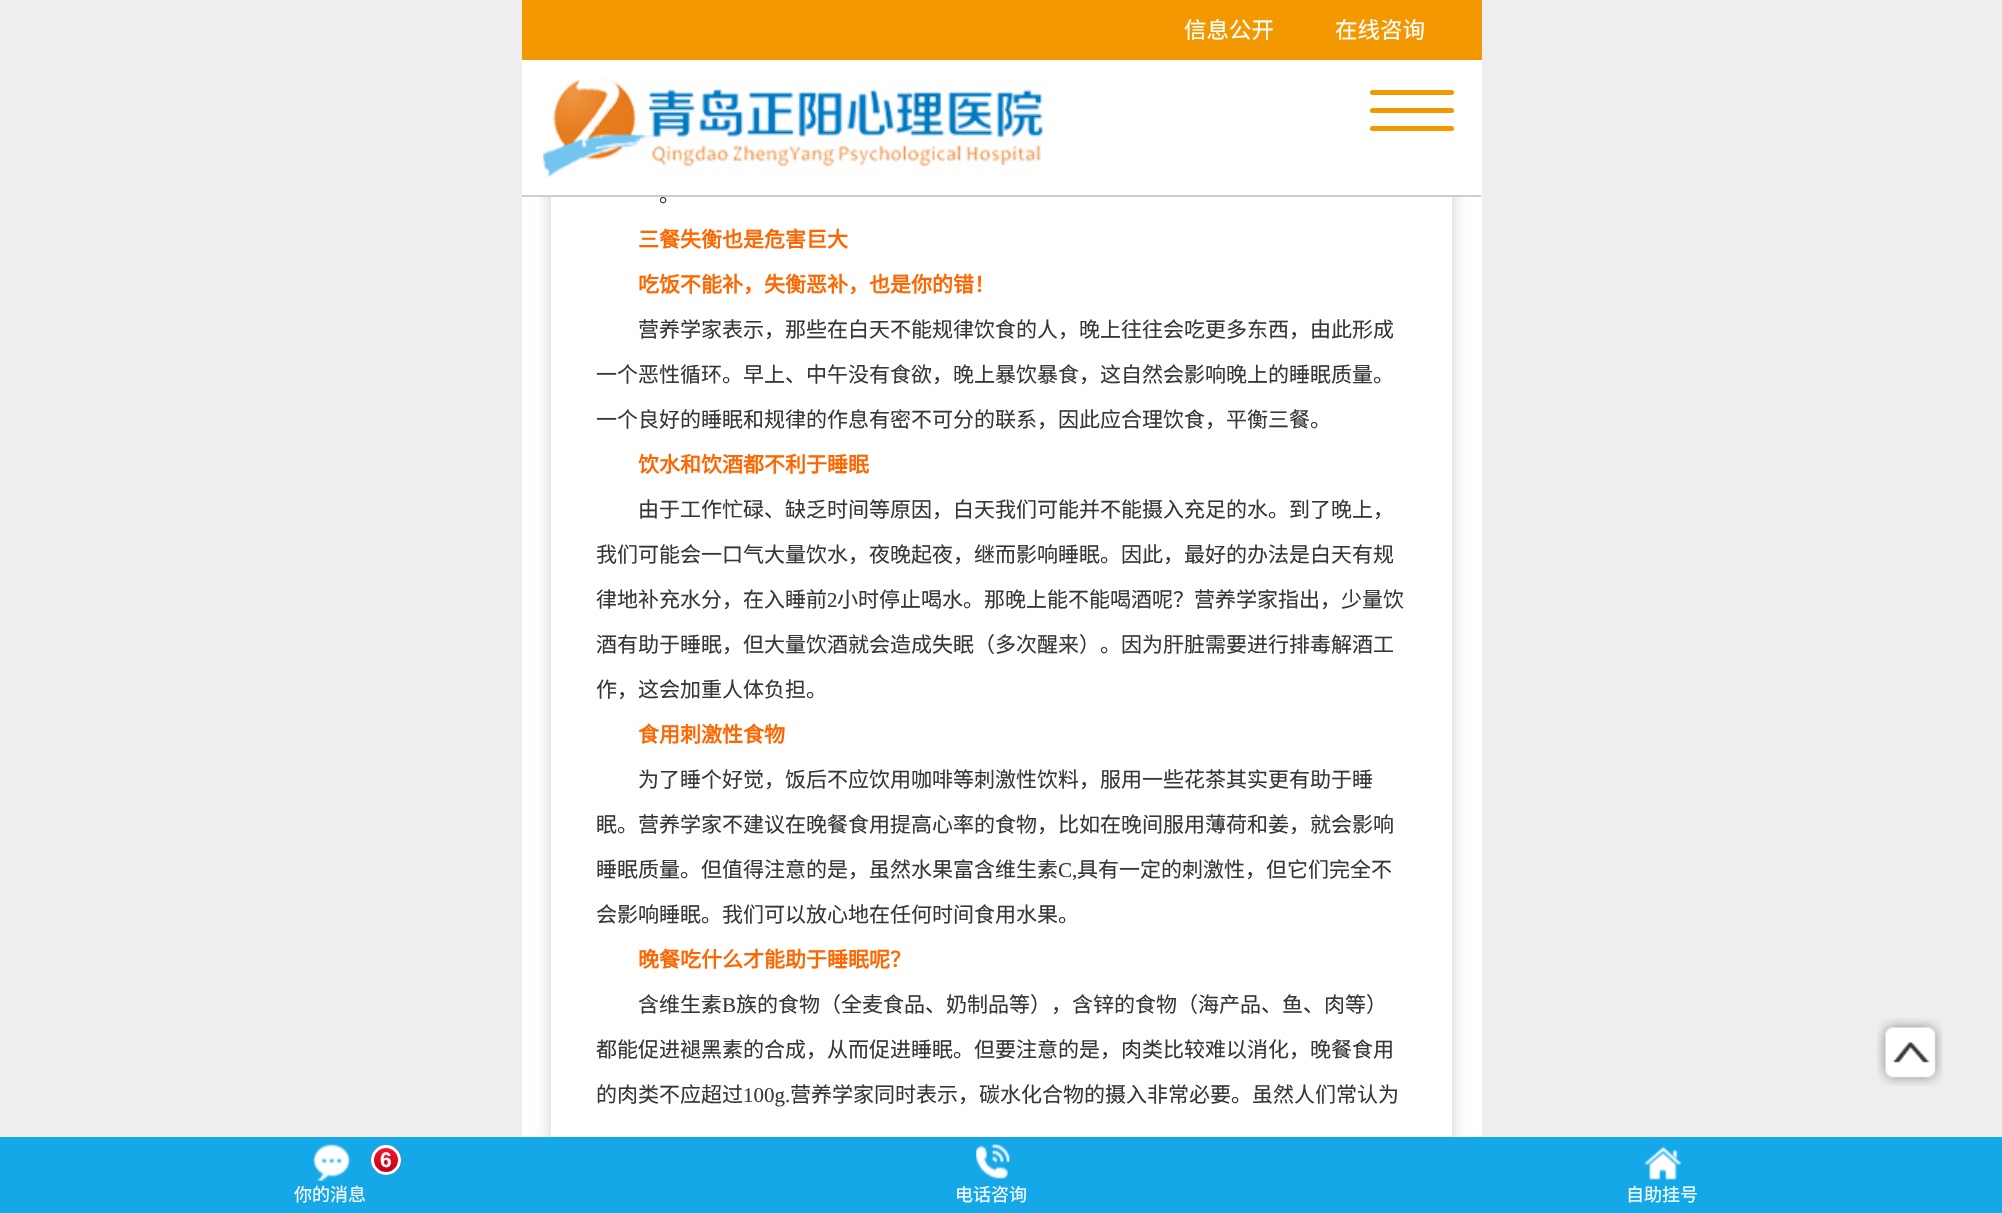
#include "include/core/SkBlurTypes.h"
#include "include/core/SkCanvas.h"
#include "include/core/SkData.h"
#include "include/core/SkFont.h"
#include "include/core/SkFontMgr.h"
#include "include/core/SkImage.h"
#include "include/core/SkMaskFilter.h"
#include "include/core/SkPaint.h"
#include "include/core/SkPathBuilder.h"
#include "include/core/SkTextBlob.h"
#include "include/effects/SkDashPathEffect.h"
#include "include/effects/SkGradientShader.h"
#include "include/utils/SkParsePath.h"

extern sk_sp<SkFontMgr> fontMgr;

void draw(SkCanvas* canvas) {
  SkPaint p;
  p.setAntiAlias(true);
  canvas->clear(SkColorSetRGB(238, 238, 238));
  p.setColor(SK_ColorWHITE);
  canvas->drawRect(SkRect::MakeLTRB(522, 197, 1482, 1137), p);
  canvas->save();
  canvas->clipPath(SkPathBuilder(SkPathFillType::kEvenOdd).moveTo(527, 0).lineTo(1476, 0).lineTo(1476, 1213).lineTo(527, 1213).close().moveTo(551, -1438).lineTo(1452, -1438).lineTo(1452, 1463).lineTo(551, 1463).close().detach(), true);
  p.setColor(SkColorSetARGB(51, 0, 0, 0));
  p.setMaskFilter(SkMaskFilter::MakeBlur(kNormal_SkBlurStyle, 7.5f));
  canvas->drawRect(SkRect::MakeLTRB(551, -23, 1452, 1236), p);
  p.setMaskFilter(nullptr);
  canvas->restore();
  p.setColor(SkColorSetRGB(243, 152, 0));
  canvas->drawRect(SkRect::MakeLTRB(522, 0, 1482, 60), p);
  canvas->drawImageRect(SkImages::DeferredFromEncodedData(SkData::MakeFromFileName("images/2.png")), SkRect::MakeLTRB(1877, 1018, 1943, 1086), SkSamplingOptions());
  p.setColor(SkColorSetRGB(21, 168, 233));
  canvas->drawRect(SkRect::MakeLTRB(0, 1137, 2002, 1213), p);
  canvas->save();
  canvas->clipPath(SkPathBuilder().moveTo(386, 1145).cubicTo(394.5f, 1145, 401, 1151.5f, 401, 1160).cubicTo(401, 1168.5f, 394.5f, 1175, 386, 1175).cubicTo(377.5f, 1175, 371, 1168.5f, 371, 1160).cubicTo(371, 1151.5f, 377.5f, 1145, 386, 1145).close().detach(), true);
  {
    const SkColor colors[] = {SkColorSetRGB(253, 20, 46), SkColorSetRGB(191, 1, 22)};
    const float stops[] = {0, 1};
    const SkPoint ends[] = {{386, 1148}, {386, 1172}};
    p.setShader(SkGradientShader::MakeLinear(ends, colors, stops, 2, SkTileMode::kClamp));
    p.setAlpha(255);
  }
  canvas->drawRect(SkRect::MakeLTRB(371, 1148, 401, 1172), p);
  canvas->restore();
  p.setStyle(SkPaint::kStroke_Style);
  p.setStrokeWidth(3);
  p.setShader(nullptr);
  p.setColor(SK_ColorWHITE);
  canvas->drawCircle(386, 1160, 13.5f, p);
  canvas->drawImageRect(SkImages::DeferredFromEncodedData(SkData::MakeFromFileName("images/3.png")), SkRect::MakeLTRB(312, 1144, 351, 1181), SkSamplingOptions());
  canvas->drawImageRect(SkImages::DeferredFromEncodedData(SkData::MakeFromFileName("images/4.png")), SkRect::MakeLTRB(976, 1144, 1010, 1179), SkSamplingOptions());
  canvas->drawImageRect(SkImages::DeferredFromEncodedData(SkData::MakeFromFileName("images/5.png")), SkRect::MakeLTRB(1644, 1146, 1682, 1180), SkSamplingOptions());
  SkFont font1(fontMgr->matchFamilyStyle("Noto Sans CJK SC", SkFontStyle::Normal()), 22.5f);
  font1.setSubpixel(true);
  p.setStyle(SkPaint::kFill_Style);
  canvas->drawString("信息公开", 1184, 38, font1, p);
  canvas->drawString("在线咨询", 1335, 38, font1, p);
  SkFont font2(fontMgr->matchFamilyStyle("Noto Sans CJK SC", SkFontStyle::Normal()), 21);
  font2.setSubpixel(true);
  p.setColor(SkColorSetRGB(55, 55, 55));
  canvas->drawString("。", 659, 202, font2, p);
  p.setColor(SK_ColorWHITE);
  canvas->drawRect(SkRect::MakeLTRB(522, 60, 1482, 197), p);
  p.setColor(SkColorSetRGB(243, 152, 0));
  canvas->drawRoundRect(SkRect::MakeLTRB(1370, 126, 1454, 131), 2.5f, 2.5f, p);
  canvas->drawRoundRect(SkRect::MakeLTRB(1370, 108, 1454, 113), 2.5f, 2.5f, p);
  canvas->drawRoundRect(SkRect::MakeLTRB(1370, 90, 1454, 95), 2.5f, 2.5f, p);
  canvas->drawImageRect(SkImages::DeferredFromEncodedData(SkData::MakeFromFileName("images/1.png")), SkRect::MakeLTRB(542, 77, 1043, 178), SkSamplingOptions());
  p.setColor(SkColorSetRGB(206, 206, 206));
  canvas->drawRect(SkRect::MakeLTRB(522, 195, 1481, 197), p);
  SkFont font3(fontMgr->matchFamilyStyle("Noto Sans CJK SC", SkFontStyle::Bold()), 21);
  font3.setSubpixel(true);
  p.setColor(SkColorSetRGB(255, 102, 0));
  canvas->drawString("三餐失衡也是危害巨大", 638, 247, font3, p);
  canvas->drawString("吃饭不能补，失衡恶补，也是你的错！", 638, 292, font3, p);
  p.setColor(SkColorSetRGB(55, 55, 55));
  canvas->drawString("营养学家表示，那些在白天不能规律饮食的人，晚上往往会吃更多东西，由此形成", 638, 337, font2, p);
  canvas->drawString("一个恶性循环。早上、中午没有食欲，晚上暴饮暴食，这自然会影响晚上的睡眠质量。", 596, 382, font2, p);
  canvas->drawString("一个良好的睡眠和规律的作息有密不可分的联系，因此应合理饮食，平衡三餐。", 596, 427, font2, p);
  p.setColor(SkColorSetRGB(255, 102, 0));
  canvas->drawString("饮水和饮酒都不利于睡眠", 638, 472, font3, p);
  p.setColor(SkColorSetRGB(55, 55, 55));
  canvas->drawString("由于工作忙碌、缺乏时间等原因，白天我们可能并不能摄入充足的水。到了晚上，", 638, 517, font2, p);
  canvas->drawString("我们可能会一口气大量饮水，夜晚起夜，继而影响睡眠。因此，最好的办法是白天有规", 596, 562, font2, p);
  canvas->drawString("律地补充水分，在入睡前", 596, 607, font2, p);
  SkFont font4(fontMgr->matchFamilyStyle("Liberation Serif", SkFontStyle::Normal()), 21);
  font4.setSubpixel(true);
  canvas->drawString("2", 827, 607, font4, p);
  canvas->drawString("小时停止喝水。那晚上能不能喝酒呢？营养学家指出，少量饮", 837, 607, font2, p);
  canvas->drawString("酒有助于睡眠，但大量饮酒就会造成失眠（多次醒来）。因为肝脏需要进行排毒解酒工", 596, 652, font2, p);
  canvas->drawString("作，这会加重人体负担。", 596, 697, font2, p);
  p.setColor(SkColorSetRGB(255, 102, 0));
  canvas->drawString("食用刺激性食物", 638, 742, font3, p);
  p.setColor(SkColorSetRGB(55, 55, 55));
  canvas->drawString("为了睡个好觉，饭后不应饮用咖啡等刺激性饮料，服用一些花茶其实更有助于睡", 638, 787, font2, p);
  canvas->drawString("眠。营养学家不建议在晚餐食用提高心率的食物，比如在晚间服用薄荷和姜，就会影响", 596, 832, font2, p);
  canvas->drawString("睡眠质量。但值得注意的是，虽然水果富含维生素", 596, 877, font2, p);
  canvas->drawString("C,", 1058, 877, font4, p);
  canvas->drawString("具有一定的刺激性，但它们完全不", 1077, 877, font2, p);
  canvas->drawString("会影响睡眠。我们可以放心地在任何时间食用水果。", 596, 922, font2, p);
  p.setColor(SkColorSetRGB(255, 102, 0));
  canvas->drawString("晚餐吃什么才能助于睡眠呢？", 638, 967, font3, p);
  p.setColor(SkColorSetRGB(55, 55, 55));
  canvas->drawString("含维生素", 638, 1012, font2, p);
  canvas->drawString("B", 722, 1012, font4, p);
  canvas->drawString("族的食物（全麦食品、奶制品等），含锌的食物（海产品、鱼、肉等）", 736, 1012, font2, p);
  canvas->drawString("都能促进褪黑素的合成，从而促进睡眠。但要注意的是，肉类比较难以消化，晚餐食用", 596, 1057, font2, p);
  canvas->drawString("的肉类不应超过", 596, 1102, font2, p);
  canvas->drawString("100g.", 743, 1102, font4, p);
  canvas->drawString("营养学家同时表示，碳水化合物的摄入非常必要。虽然人们常认为", 790, 1102, font2, p);
  SkFont font5(fontMgr->matchFamilyStyle("Liberation Sans", SkFontStyle::Bold()), 21);
  font5.setSubpixel(true);
  p.setColor(SK_ColorWHITE);
  canvas->drawString("6", 380, 1167, font5, p);
  SkFont font6(fontMgr->matchFamilyStyle("Noto Sans CJK SC", SkFontStyle::Normal()), 18);
  font6.setSubpixel(true);
  canvas->drawString("你的消息", 294, 1201, font6, p);
  canvas->drawString("电话咨询", 955, 1201, font6, p);
  canvas->drawString("自助挂号", 1626, 1201, font6, p);
}
